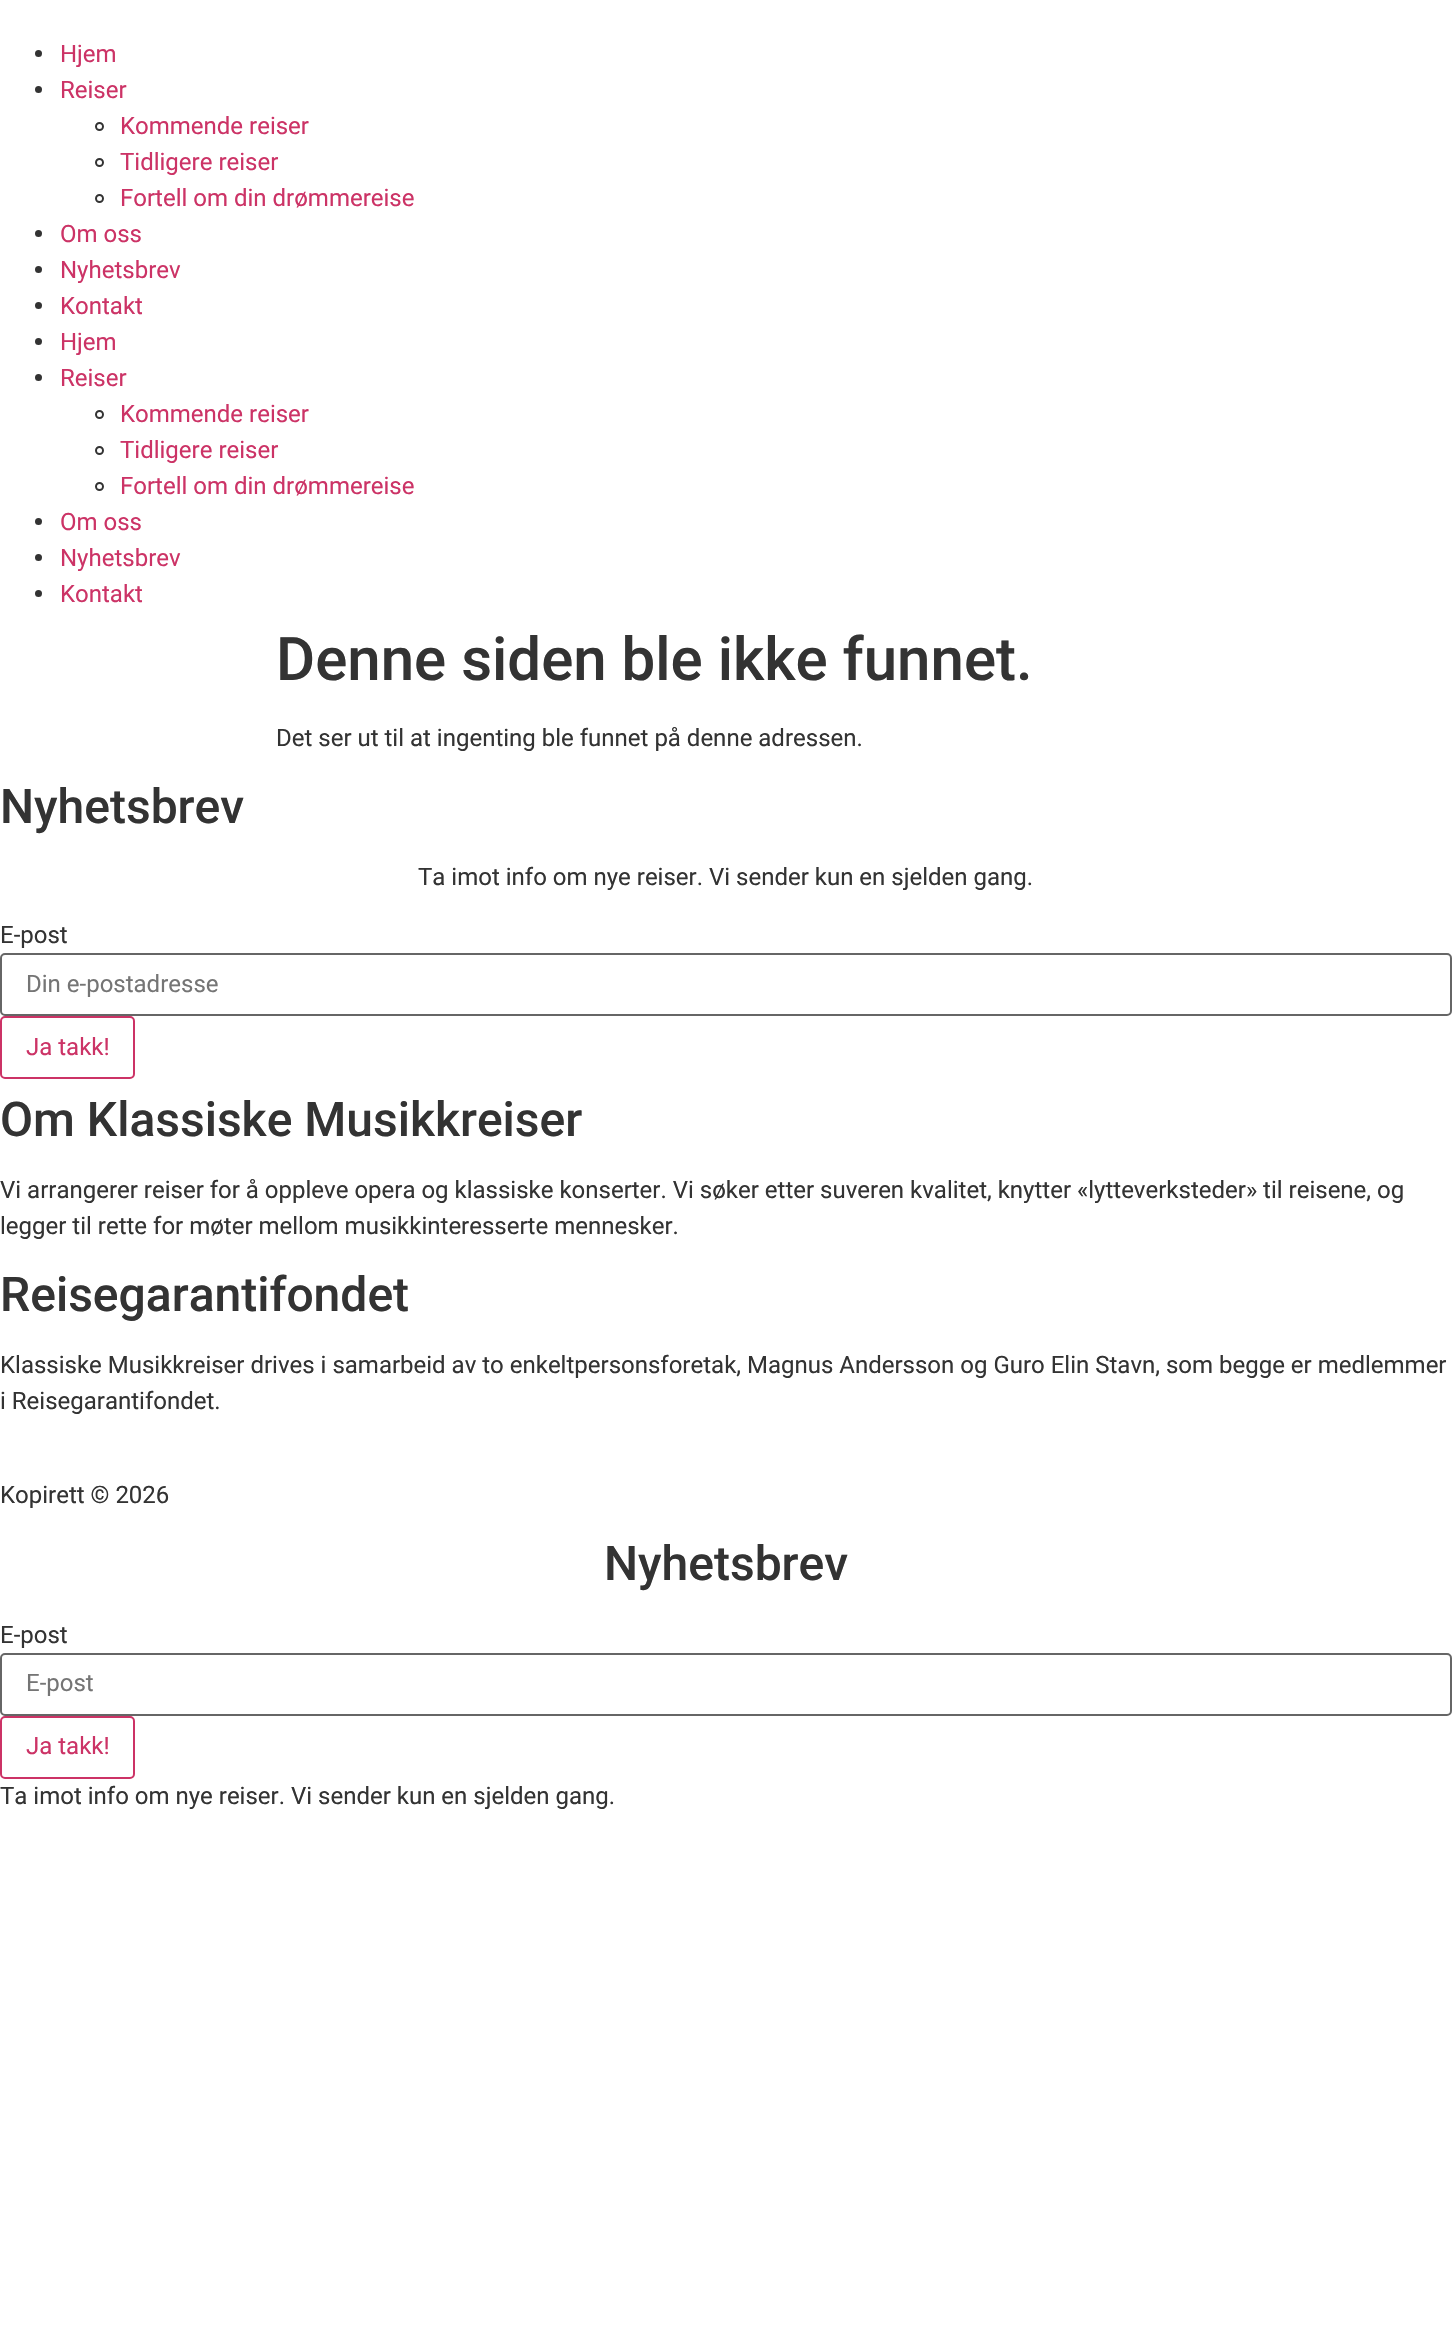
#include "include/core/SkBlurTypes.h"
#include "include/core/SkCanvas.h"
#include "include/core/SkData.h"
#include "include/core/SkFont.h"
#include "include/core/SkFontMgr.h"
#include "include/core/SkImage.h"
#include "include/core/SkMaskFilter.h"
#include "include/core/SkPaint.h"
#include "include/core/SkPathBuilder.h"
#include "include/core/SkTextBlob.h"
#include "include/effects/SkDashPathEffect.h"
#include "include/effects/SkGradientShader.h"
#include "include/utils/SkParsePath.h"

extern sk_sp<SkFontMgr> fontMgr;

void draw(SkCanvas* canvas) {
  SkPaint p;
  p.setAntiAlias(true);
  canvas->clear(SK_ColorWHITE);
  p.setColor(SkColorSetRGB(51, 51, 51));
  canvas->drawCircle(38.5f, 53.5f, 3.5f, p);
  canvas->drawCircle(38.5f, 89.5f, 3.5f, p);
  p.setStyle(SkPaint::kStroke_Style);
  p.setStrokeWidth(2);
  canvas->drawCircle(99.5f, 126.5f, 3.5f, p);
  canvas->drawCircle(99.5f, 162.5f, 3.5f, p);
  canvas->drawCircle(99.5f, 198.5f, 3.5f, p);
  p.setStyle(SkPaint::kFill_Style);
  canvas->drawCircle(38.5f, 233.5f, 3.5f, p);
  canvas->drawCircle(38.5f, 269.5f, 3.5f, p);
  canvas->drawCircle(38.5f, 305.5f, 3.5f, p);
  canvas->drawCircle(38.5f, 341.5f, 3.5f, p);
  canvas->drawCircle(38.5f, 377.5f, 3.5f, p);
  p.setStyle(SkPaint::kStroke_Style);
  canvas->drawCircle(99.5f, 414.5f, 3.5f, p);
  canvas->drawCircle(99.5f, 450.5f, 3.5f, p);
  canvas->drawCircle(99.5f, 486.5f, 3.5f, p);
  p.setStyle(SkPaint::kFill_Style);
  canvas->drawCircle(38.5f, 521.5f, 3.5f, p);
  canvas->drawCircle(38.5f, 557.5f, 3.5f, p);
  canvas->drawCircle(38.5f, 593.5f, 3.5f, p);
  p.setStyle(SkPaint::kStroke_Style);
  p.setColor(SkColorSetRGB(102, 102, 102));
  canvas->drawRoundRect(SkRect::MakeLTRB(1, 954, 1451, 1015), 4, 4, p);
  p.setColor(SkColorSetRGB(204, 51, 102));
  canvas->drawRoundRect(SkRect::MakeLTRB(1, 1017, 134, 1078), 4, 4, p);
  p.setColor(SkColorSetRGB(102, 102, 102));
  canvas->drawRoundRect(SkRect::MakeLTRB(1, 1654, 1451, 1715), 4, 4, p);
  p.setColor(SkColorSetRGB(204, 51, 102));
  canvas->drawRoundRect(SkRect::MakeLTRB(1, 1717, 134, 1778), 4, 4, p);
  SkFont font1(fontMgr->matchFamilyStyle("Roboto", SkFontStyle::Normal()), 24);
  font1.setSubpixel(true);
  p.setStyle(SkPaint::kFill_Style);
  canvas->drawString("Hjem", 60, 62, font1, p);
  canvas->drawString("Reiser", 60, 98, font1, p);
  canvas->drawString("Kommende reiser", 120, 134, font1, p);
  canvas->drawString("Tidligere reiser", 120, 170, font1, p);
  canvas->drawString("Fortell om din drømmereise", 120, 206, font1, p);
  canvas->drawString("Om oss", 60, 242, font1, p);
  canvas->drawString("Nyhetsbrev", 60, 278, font1, p);
  canvas->drawString("Kontakt", 60, 314, font1, p);
  canvas->drawString("Hjem", 60, 350, font1, p);
  canvas->drawString("Reiser", 60, 386, font1, p);
  canvas->drawString("Kommende reiser", 120, 422, font1, p);
  canvas->drawString("Tidligere reiser", 120, 458, font1, p);
  canvas->drawString("Fortell om din drømmereise", 120, 494, font1, p);
  canvas->drawString("Om oss", 60, 530, font1, p);
  canvas->drawString("Nyhetsbrev", 60, 566, font1, p);
  canvas->drawString("Kontakt", 60, 602, font1, p);
  SkFont font2(fontMgr->matchFamilyStyle("Roboto", SkFontStyle(500, SkFontStyle::kNormal_Width, SkFontStyle::kUpright_Slant)), 60);
  font2.setSubpixel(true);
  p.setColor(SkColorSetRGB(51, 51, 51));
  canvas->drawString("Denne siden ble ikke funnet.", 276, 680, font2, p);
  canvas->drawString("Det ser ut til at ingenting ble funnet på denne adressen.", 276, 746, font1, p);
  SkFont font3(fontMgr->matchFamilyStyle("Roboto", SkFontStyle(500, SkFontStyle::kNormal_Width, SkFontStyle::kUpright_Slant)), 48);
  font3.setSubpixel(true);
  canvas->drawString("Nyhetsbrev", 0, 823, font3, p);
  canvas->drawString("Ta imot info om nye reiser. Vi sender kun en sjelden gang.", 418, 885, font1, p);
  canvas->drawString("E-post", 0, 943, font1, p);
  p.setColor(SkColorSetRGB(117, 117, 117));
  canvas->drawString("Din e-postadresse", 26, 992, font1, p);
  p.setColor(SkColorSetRGB(204, 51, 102));
  canvas->drawString("Ja takk!", 26, 1055, font1, p);
  p.setColor(SkColorSetRGB(51, 51, 51));
  canvas->drawString("Om Klassiske Musikkreiser", 0, 1136, font3, p);
  canvas->drawString("Vi arrangerer reiser for å oppleve opera og klassiske konserter. Vi søker etter suveren kvalitet, knytter «lytteverksteder» til reisene, og", 0, 1198, font1, p);
  canvas->drawString("legger til rette for møter mellom musikkinteresserte mennesker.", 0, 1234, font1, p);
  canvas->drawString("Reisegarantifondet", 0, 1311, font3, p);
  canvas->drawString("Klassiske Musikkreiser drives i samarbeid av to enkeltpersonsforetak, Magnus Andersson og Guro Elin Stavn, som begge er medlemmer", 0, 1373, font1, p);
  canvas->drawString("i Reisegarantifondet.", 0, 1409, font1, p);
  canvas->drawString("Kopirett © 2026", 0, 1503, font1, p);
  canvas->drawString("Nyhetsbrev", 604, 1580, font3, p);
  canvas->drawString("E-post", 0, 1643, font1, p);
  p.setColor(SkColorSetRGB(117, 117, 117));
  canvas->drawString("E-post", 26, 1691, font1, p);
  p.setColor(SkColorSetRGB(204, 51, 102));
  canvas->drawString("Ja takk!", 26, 1754, font1, p);
  p.setColor(SkColorSetRGB(51, 51, 51));
  canvas->drawString("Ta imot info om nye reiser. Vi sender kun en sjelden gang.", 0, 1804, font1, p);
}
